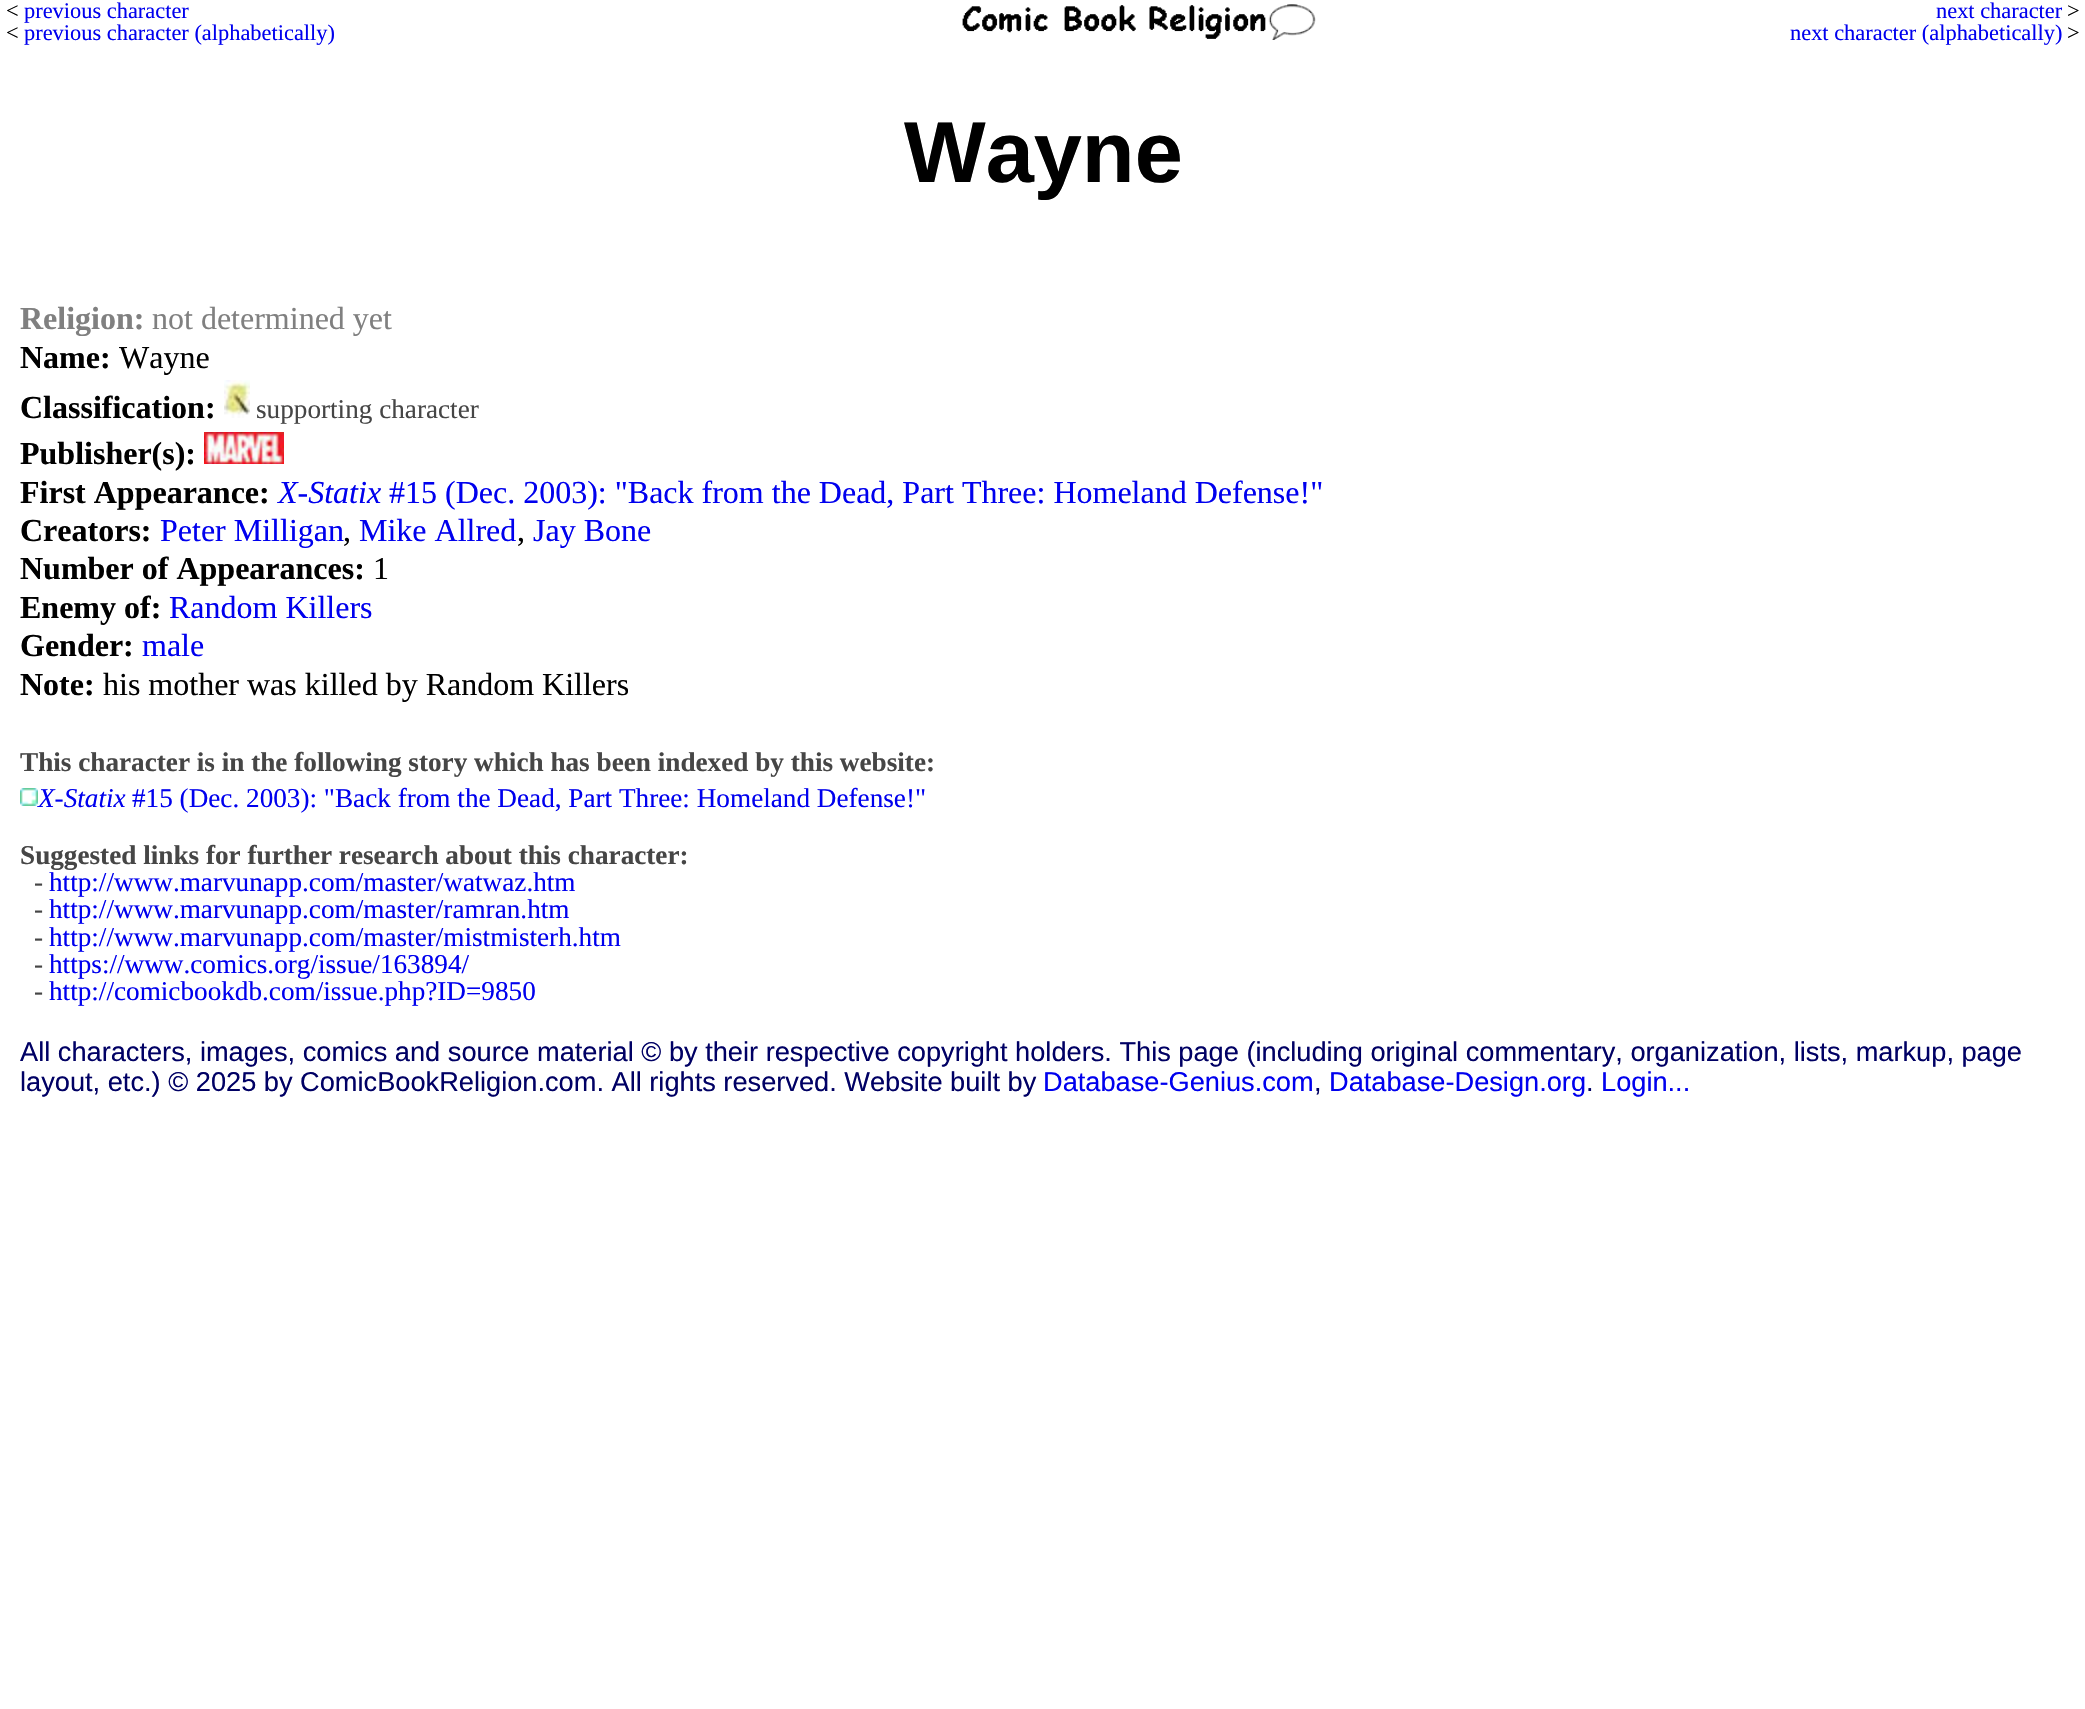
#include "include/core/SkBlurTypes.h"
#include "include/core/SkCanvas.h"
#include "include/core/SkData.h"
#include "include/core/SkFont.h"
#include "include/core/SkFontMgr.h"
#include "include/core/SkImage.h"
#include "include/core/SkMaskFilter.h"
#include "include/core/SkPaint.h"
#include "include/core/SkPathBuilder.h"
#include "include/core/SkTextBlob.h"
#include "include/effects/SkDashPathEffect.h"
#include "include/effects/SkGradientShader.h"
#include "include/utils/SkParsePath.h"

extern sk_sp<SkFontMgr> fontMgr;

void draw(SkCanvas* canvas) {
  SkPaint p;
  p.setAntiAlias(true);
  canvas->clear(SK_ColorWHITE);
  canvas->drawImageRect(SkImages::DeferredFromEncodedData(SkData::MakeFromFileName("images/1.png")), SkRect::MakeLTRB(962, 4, 1316, 40), SkSamplingOptions());
  canvas->drawImageRect(SkImages::DeferredFromEncodedData(SkData::MakeFromFileName("images/2.png")), SkRect::MakeLTRB(224, 380, 250, 418), SkSamplingOptions());
  canvas->drawImageRect(SkImages::DeferredFromEncodedData(SkData::MakeFromFileName("images/3.png")), SkRect::MakeLTRB(204, 432, 284, 464), SkSamplingOptions());
  canvas->drawImageRect(SkImages::DeferredFromEncodedData(SkData::MakeFromFileName("images/4.png")), SkRect::MakeLTRB(20, 788, 38, 806), SkSamplingOptions());
  SkFont font1(fontMgr->matchFamilyStyle("Liberation Serif", SkFontStyle::Normal()), 22.4f);
  font1.setSubpixel(true);
  p.setColor(SK_ColorBLACK);
  canvas->drawString("<", 6, 18, font1, p);
  p.setColor(SkColorSetRGB(0, 0, 238));
  canvas->drawString("previous character", 24, 18, font1, p);
  p.setColor(SK_ColorBLACK);
  canvas->drawString("<", 6, 40, font1, p);
  p.setColor(SkColorSetRGB(0, 0, 238));
  canvas->drawString("previous character (alphabetically)", 24, 40, font1, p);
  canvas->drawString("next character", 1936, 18, font1, p);
  p.setColor(SK_ColorBLACK);
  canvas->drawString(">", 2067, 18, font1, p);
  p.setColor(SkColorSetRGB(0, 0, 238));
  canvas->drawString("next character (alphabetically)", 1790, 40, font1, p);
  p.setColor(SK_ColorBLACK);
  canvas->drawString(">", 2067, 40, font1, p);
  SkFont font2(fontMgr->matchFamilyStyle("Liberation Sans", SkFontStyle::Bold()), 86.5f);
  font2.setSubpixel(true);
  canvas->drawString("Wayne", 904, 182, font2, p);
  SkFont font3(fontMgr->matchFamilyStyle("Liberation Serif", SkFontStyle::Bold()), 32);
  font3.setSubpixel(true);
  p.setColor(SkColorSetRGB(128, 128, 128));
  canvas->drawString("Religion:", 20, 329, font3, p);
  SkFont font4(fontMgr->matchFamilyStyle("Liberation Serif", SkFontStyle::Normal()), 32);
  font4.setSubpixel(true);
  canvas->drawString("not determined yet", 152, 329, font4, p);
  p.setColor(SK_ColorBLACK);
  canvas->drawString("Name:", 20, 368, font3, p);
  canvas->drawString("Wayne", 119, 368, font4, p);
  canvas->drawString("Classification:", 20, 418, font3, p);
  SkFont font5(fontMgr->matchFamilyStyle("Liberation Serif", SkFontStyle::Normal()), 27.2f);
  font5.setSubpixel(true);
  p.setColor(SkColorSetRGB(70, 70, 70));
  canvas->drawString("supporting character", 256, 418, font5, p);
  p.setColor(SK_ColorBLACK);
  canvas->drawString("Publisher(s):", 20, 464, font3, p);
  canvas->drawString("First Appearance:", 20, 503, font3, p);
  SkFont font6(fontMgr->matchFamilyStyle("Liberation Serif", SkFontStyle::Italic()), 32);
  font6.setSubpixel(true);
  p.setColor(SkColorSetRGB(0, 0, 238));
  canvas->drawString("X-Statix", 278, 503, font6, p);
  canvas->drawString("#15 (Dec. 2003): \"Back from the Dead, Part Three: Homeland Defense!\"", 389, 503, font4, p);
  p.setColor(SK_ColorBLACK);
  canvas->drawString("Creators:", 20, 541, font3, p);
  p.setColor(SkColorSetRGB(0, 0, 238));
  canvas->drawString("Peter Milligan", 160, 541, font4, p);
  p.setColor(SK_ColorBLACK);
  canvas->drawString(",", 343, 541, font4, p);
  p.setColor(SkColorSetRGB(0, 0, 238));
  canvas->drawString("Mike Allred", 359, 541, font4, p);
  p.setColor(SK_ColorBLACK);
  canvas->drawString(",", 517, 541, font4, p);
  p.setColor(SkColorSetRGB(0, 0, 238));
  canvas->drawString("Jay Bone", 533, 541, font4, p);
  p.setColor(SK_ColorBLACK);
  canvas->drawString("Number of Appearances:", 20, 579, font3, p);
  canvas->drawString("1", 373, 579, font4, p);
  canvas->drawString("Enemy of:", 20, 618, font3, p);
  p.setColor(SkColorSetRGB(0, 0, 238));
  canvas->drawString("Random Killers", 169, 618, font4, p);
  p.setColor(SK_ColorBLACK);
  canvas->drawString("Gender:", 20, 656, font3, p);
  p.setColor(SkColorSetRGB(0, 0, 238));
  canvas->drawString("male", 142, 656, font4, p);
  p.setColor(SK_ColorBLACK);
  canvas->drawString("Note:", 20, 695, font3, p);
  canvas->drawString("his mother was killed by Random Killers", 103, 695, font4, p);
  SkFont font7(fontMgr->matchFamilyStyle("Liberation Serif", SkFontStyle::Bold()), 27.2f);
  font7.setSubpixel(true);
  p.setColor(SkColorSetRGB(70, 70, 70));
  canvas->drawString("This character is in the following story which has been indexed by this website:", 20, 771, font7, p);
  SkFont font8(fontMgr->matchFamilyStyle("Liberation Serif", SkFontStyle::Italic()), 27.2f);
  font8.setSubpixel(true);
  p.setColor(SkColorSetRGB(0, 0, 238));
  canvas->drawString("X-Statix", 38, 807, font8, p);
  canvas->drawString("#15 (Dec. 2003): \"Back from the Dead, Part Three: Homeland Defense!\"", 132, 807, font5, p);
  p.setColor(SkColorSetRGB(70, 70, 70));
  canvas->drawString("Suggested links for further research about this character:", 20, 864, font7, p);
  canvas->drawString("-", 34, 891, font5, p);
  p.setColor(SkColorSetRGB(0, 0, 238));
  canvas->drawString("http://www.marvunapp.com/master/watwaz.htm", 49, 891, font5, p);
  p.setColor(SkColorSetRGB(70, 70, 70));
  canvas->drawString("-", 34, 918, font5, p);
  p.setColor(SkColorSetRGB(0, 0, 238));
  canvas->drawString("http://www.marvunapp.com/master/ramran.htm", 49, 918, font5, p);
  p.setColor(SkColorSetRGB(70, 70, 70));
  canvas->drawString("-", 34, 946, font5, p);
  p.setColor(SkColorSetRGB(0, 0, 238));
  canvas->drawString("http://www.marvunapp.com/master/mistmisterh.htm", 49, 946, font5, p);
  p.setColor(SkColorSetRGB(70, 70, 70));
  canvas->drawString("-", 34, 973, font5, p);
  p.setColor(SkColorSetRGB(0, 0, 238));
  canvas->drawString("https://www.comics.org/issue/163894/", 49, 973, font5, p);
  p.setColor(SkColorSetRGB(70, 70, 70));
  canvas->drawString("-", 34, 1000, font5, p);
  p.setColor(SkColorSetRGB(0, 0, 238));
  canvas->drawString("http://comicbookdb.com/issue.php?ID=9850", 49, 1000, font5, p);
  SkFont font9(fontMgr->matchFamilyStyle("Liberation Sans", SkFontStyle::Normal()), 27.2f);
  font9.setSubpixel(true);
  p.setColor(SkColorSetRGB(0, 0, 100));
  canvas->drawString("All characters, images, comics and source material © by their respective copyright holders. This page (including original commentary, organization, lists, markup, page", 20, 1061, font9, p);
  canvas->drawString("layout, etc.) © 2025 by ComicBookReligion.com. All rights reserved. Website built by", 20, 1091, font9, p);
  p.setColor(SkColorSetRGB(0, 0, 238));
  canvas->drawString("Database-Genius.com", 1043, 1091, font9, p);
  p.setColor(SkColorSetRGB(0, 0, 100));
  canvas->drawString(",", 1314, 1091, font9, p);
  p.setColor(SkColorSetRGB(0, 0, 238));
  canvas->drawString("Database-Design.org", 1329, 1091, font9, p);
  p.setColor(SkColorSetRGB(0, 0, 100));
  canvas->drawString(".", 1586, 1091, font9, p);
  p.setColor(SkColorSetRGB(0, 0, 238));
  canvas->drawString("Login...", 1601, 1091, font9, p);
}
